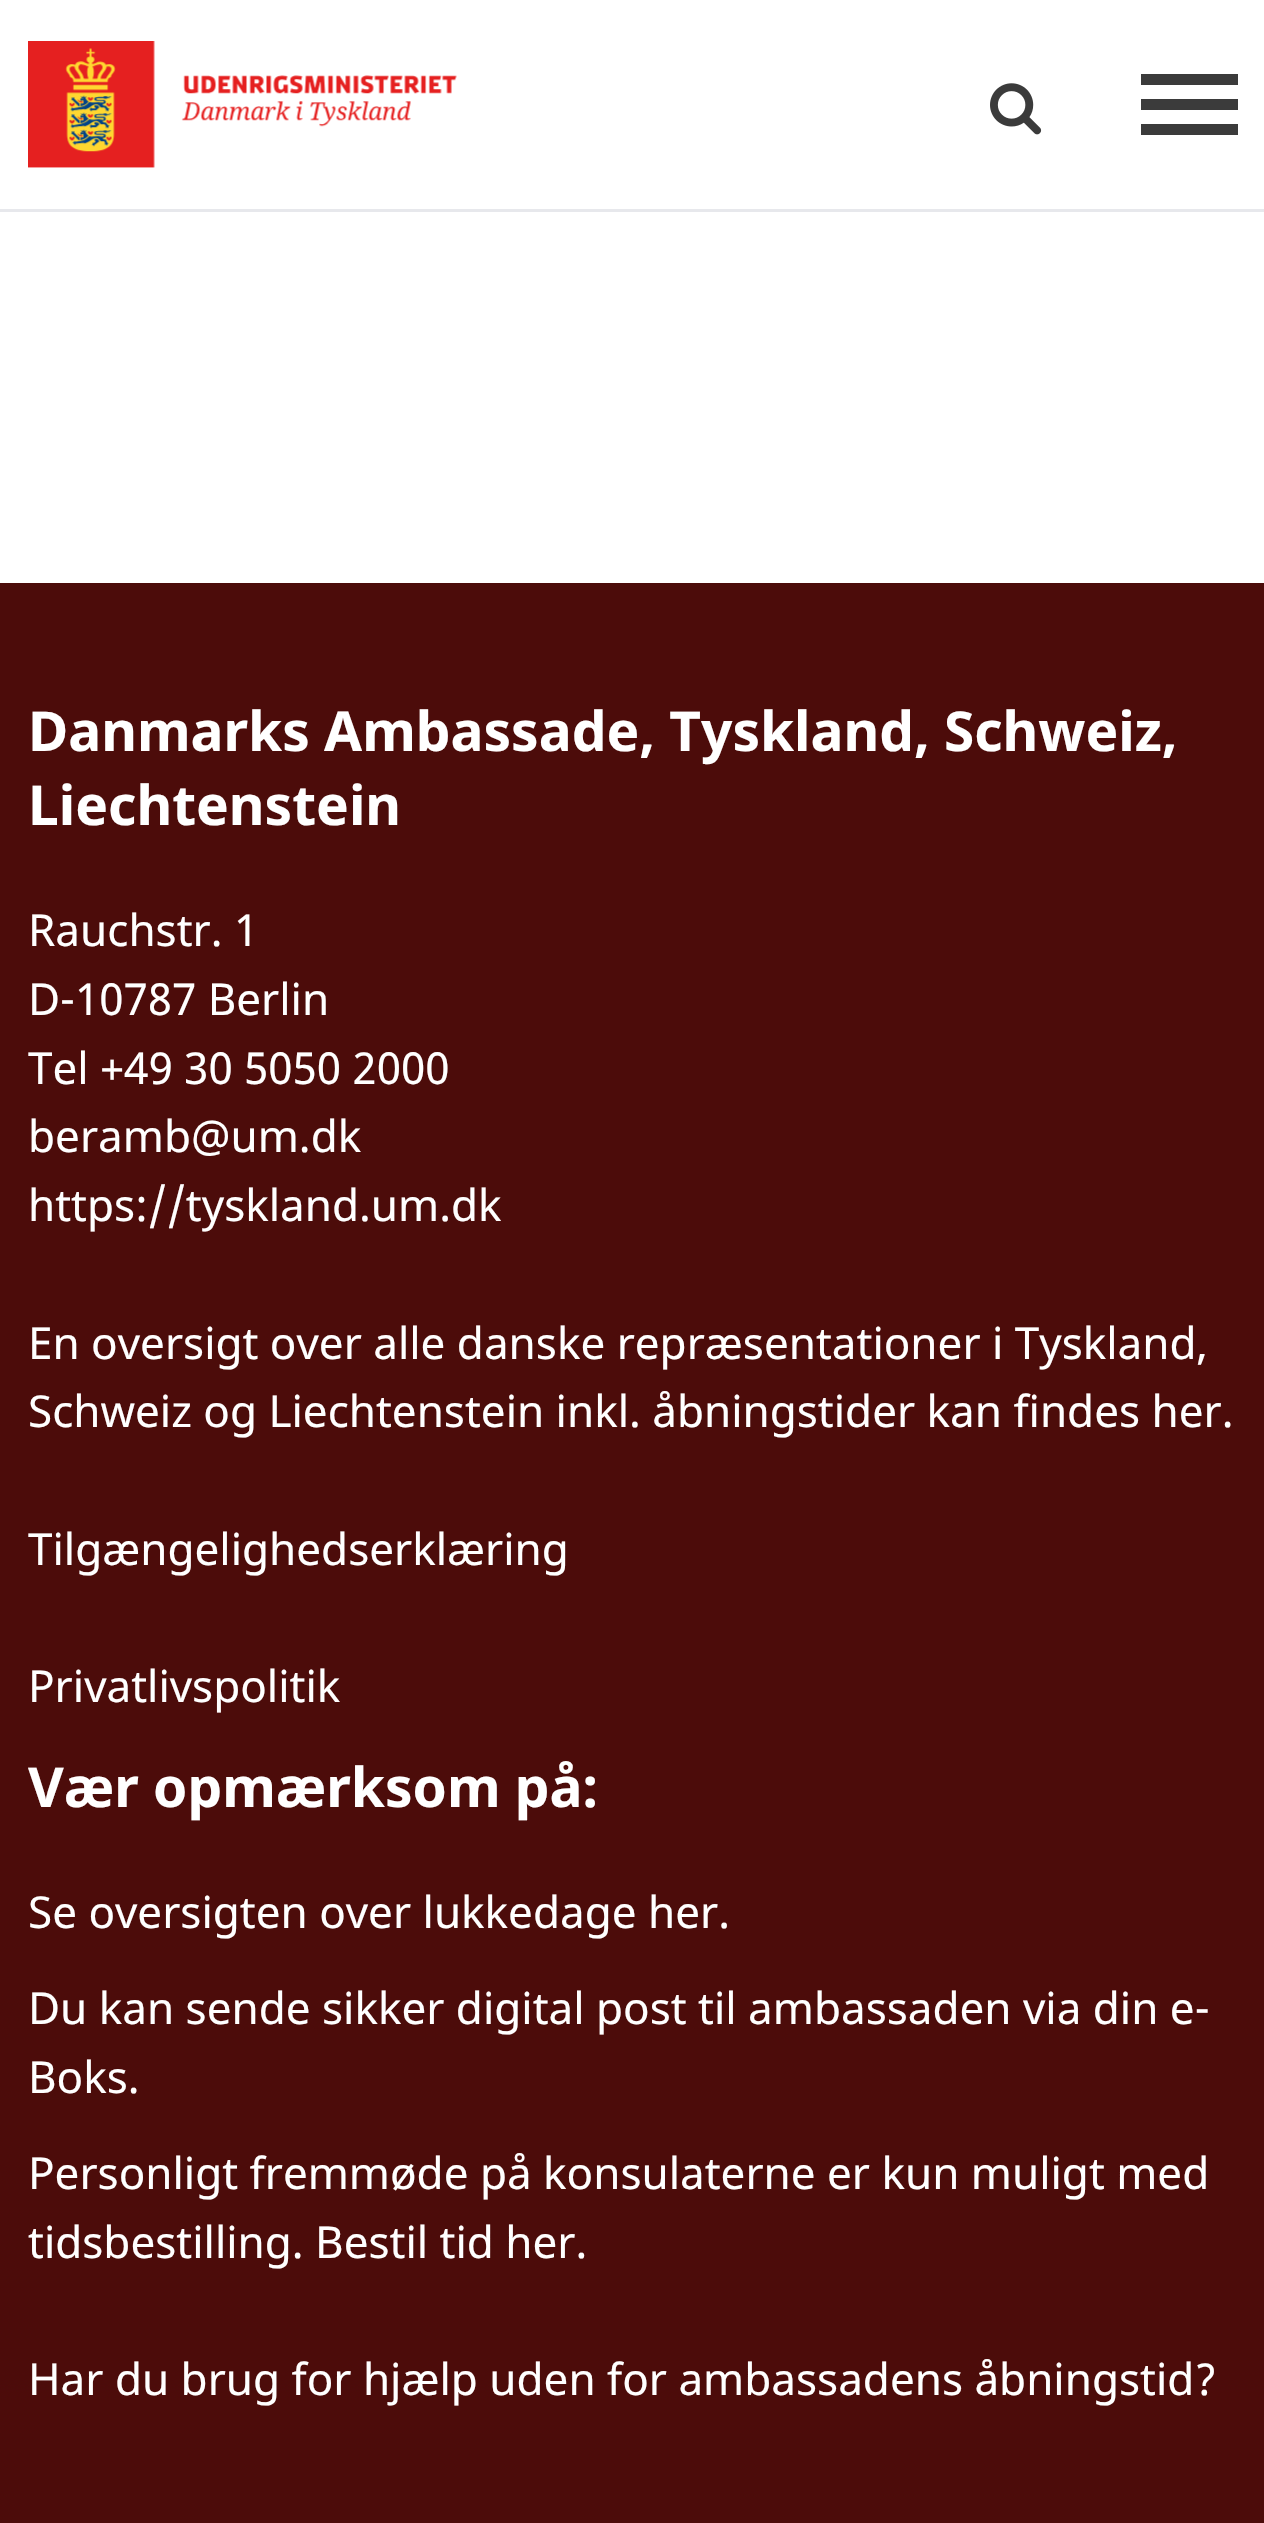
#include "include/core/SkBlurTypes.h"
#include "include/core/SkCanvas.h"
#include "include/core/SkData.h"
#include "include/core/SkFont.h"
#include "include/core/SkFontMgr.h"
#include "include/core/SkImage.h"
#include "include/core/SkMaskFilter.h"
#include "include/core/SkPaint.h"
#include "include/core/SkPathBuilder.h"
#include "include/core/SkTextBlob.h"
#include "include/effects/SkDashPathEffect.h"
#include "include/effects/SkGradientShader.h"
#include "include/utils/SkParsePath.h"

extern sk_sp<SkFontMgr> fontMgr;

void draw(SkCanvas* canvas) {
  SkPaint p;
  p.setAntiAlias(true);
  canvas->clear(SK_ColorWHITE);
  p.setColor(SkColorSetRGB(231, 232, 236));
  canvas->drawRect(SkRect::MakeLTRB(0, 209, 1264, 212), p);
  canvas->drawImageRect(SkImages::DeferredFromEncodedData(SkData::MakeFromFileName("images/1.png")), SkRect::MakeLTRB(28, 41, 457, 168), SkSamplingOptions());
  canvas->drawImageRect(SkImages::DeferredFromEncodedData(SkData::MakeFromFileName("images/2.png")), SkRect::MakeLTRB(990, 83, 1042, 135), SkSamplingOptions());
  p.setColor(SkColorSetRGB(59, 59, 59));
  canvas->drawRect(SkRect::MakeLTRB(1141, 74, 1238, 85), p);
  canvas->drawRect(SkRect::MakeLTRB(1141, 99, 1238, 110), p);
  canvas->drawRect(SkRect::MakeLTRB(1141, 124, 1238, 135), p);
  p.setColor(SkColorSetRGB(76, 12, 10));
  canvas->drawRect(SkRect::MakeLTRB(0, 583, 1264, 2523), p);
  SkFont font1(fontMgr->matchFamilyStyle("Noto Sans", SkFontStyle::Bold()), 55);
  font1.setSubpixel(true);
  p.setColor(SK_ColorWHITE);
  canvas->drawString("Danmarks Ambassade, Tyskland, Schweiz,", 28, 751, font1, p);
  canvas->drawString("Liechtenstein", 28, 825, font1, p);
  SkFont font2(fontMgr->matchFamilyStyle("Noto Sans", SkFontStyle::Normal()), 44);
  font2.setSubpixel(true);
  canvas->drawString("Rauchstr. 1", 28, 946, font2, p);
  canvas->drawString("D-10787 Berlin", 28, 1015, font2, p);
  canvas->drawString("Tel +49 30 5050 2000", 28, 1084, font2, p);
  canvas->drawString("beramb@um.dk", 28, 1152, font2, p);
  canvas->drawString("https://tyskland.um.dk", 28, 1221, font2, p);
  canvas->drawString("En oversigt over alle danske repræsentationer i Tyskland,", 28, 1359, font2, p);
  canvas->drawString("Schweiz og Liechtenstein inkl. åbningstider kan findes her.", 28, 1427, font2, p);
  canvas->drawString("Tilgængelighedserklæring", 28, 1565, font2, p);
  canvas->drawString("Privatlivspolitik", 28, 1702, font2, p);
  canvas->drawString("Vær opmærksom på:", 28, 1807, font1, p);
  canvas->drawString("Se oversigten over lukkedage her.", 28, 1928, font2, p);
  canvas->drawString("Du kan sende sikker digital post til ambassaden via din e-", 28, 2024, font2, p);
  canvas->drawString("Boks.", 28, 2093, font2, p);
  canvas->drawString("Personligt fremmøde på konsulaterne er kun muligt med", 28, 2189, font2, p);
  canvas->drawString("tidsbestilling. Bestil tid her.", 28, 2258, font2, p);
  canvas->drawString("Har du brug for hjælp uden for ambassadens åbningstid?", 28, 2395, font2, p);
}
